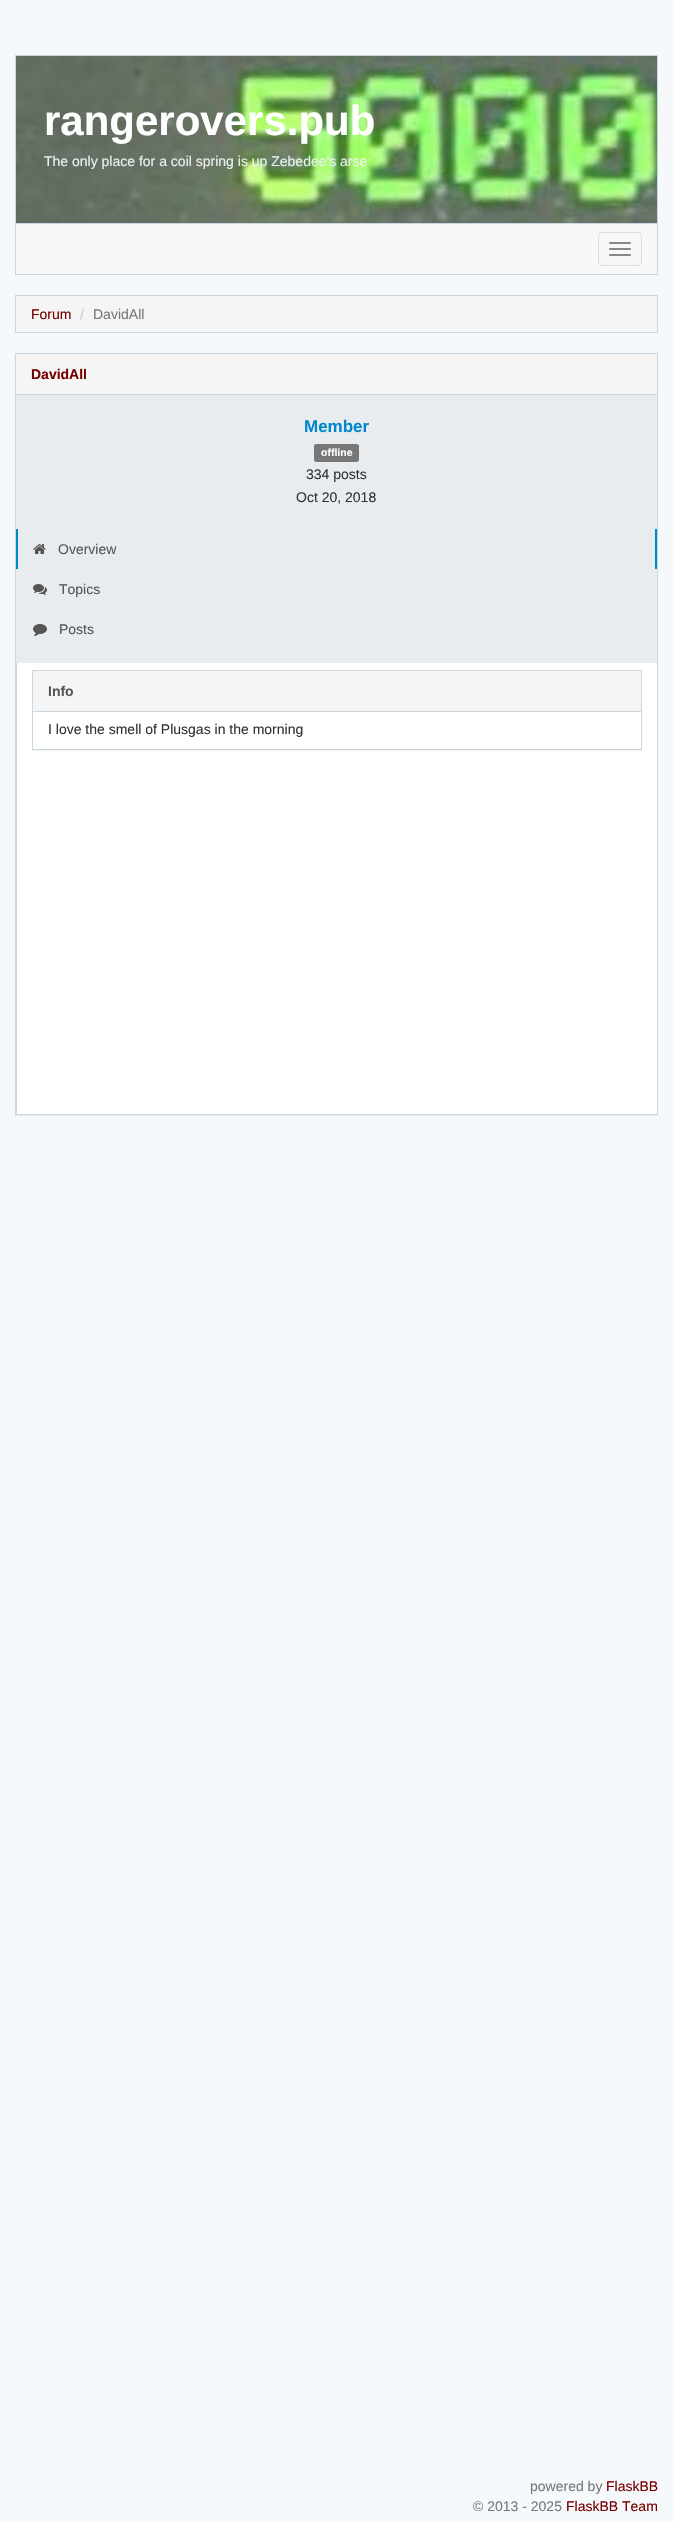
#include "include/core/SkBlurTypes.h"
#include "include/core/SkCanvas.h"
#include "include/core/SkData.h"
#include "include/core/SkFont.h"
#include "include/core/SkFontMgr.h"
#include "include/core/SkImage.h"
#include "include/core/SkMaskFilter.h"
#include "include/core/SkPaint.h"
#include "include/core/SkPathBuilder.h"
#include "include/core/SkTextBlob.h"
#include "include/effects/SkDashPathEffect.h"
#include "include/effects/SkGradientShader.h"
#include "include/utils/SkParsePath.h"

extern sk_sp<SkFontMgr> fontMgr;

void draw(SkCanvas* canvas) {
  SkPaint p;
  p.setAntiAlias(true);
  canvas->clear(SkColorSetRGB(246, 249, 252));
  canvas->drawImageRect(SkImages::DeferredFromEncodedData(SkData::MakeFromFileName("images/1.png")), SkRect::MakeLTRB(16, 56, 657, 223), SkSamplingOptions());
  p.setColor(SkColorSetRGB(202, 215, 225));
  canvas->drawRect(SkRect::MakeLTRB(15, 55, 658, 56), p);
  canvas->drawRect(SkRect::MakeLTRB(657, 55, 658, 223), p);
  canvas->drawRect(SkRect::MakeLTRB(15, 55, 16, 223), p);
  p.setColor(SkColorSetRGB(248, 248, 248));
  canvas->drawRect(SkRect::MakeLTRB(15.5f, 223.5f, 657.5f, 274.5f), p);
  p.setStyle(SkPaint::kStroke_Style);
  p.setStrokeWidth(1);
  p.setColor(SkColorSetRGB(202, 215, 225));
  canvas->drawRect(SkRect::MakeLTRB(15.5f, 223.5f, 657.5f, 274.5f), p);
  p.setColor(SkColorSetRGB(221, 221, 221));
  canvas->drawRoundRect(SkRect::MakeLTRB(598.5f, 232.5f, 641.5f, 265.5f), 3.5f, 3.5f, p);
  p.setStyle(SkPaint::kFill_Style);
  p.setColor(SkColorSetRGB(136, 136, 136));
  canvas->drawRoundRect(SkRect::MakeLTRB(609, 242, 631, 244), 1, 1, p);
  canvas->drawRoundRect(SkRect::MakeLTRB(609, 248, 631, 250), 1, 1, p);
  canvas->drawRoundRect(SkRect::MakeLTRB(609, 254, 631, 256), 1, 1, p);
  p.setColor(SkColorSetRGB(245, 245, 245));
  canvas->drawRect(SkRect::MakeLTRB(15.5f, 295.5f, 657.5f, 332.5f), p);
  p.setStyle(SkPaint::kStroke_Style);
  p.setColor(SkColorSetRGB(202, 215, 225));
  canvas->drawRect(SkRect::MakeLTRB(15.5f, 295.5f, 657.5f, 332.5f), p);
  p.setStyle(SkPaint::kFill_Style);
  p.setColor(SkColorSetARGB(13, 0, 0, 0));
  p.setMaskFilter(SkMaskFilter::MakeBlur(kNormal_SkBlurStyle, 0.5f));
  canvas->drawRect(SkRect::MakeLTRB(15, 354, 658, 1116), p);
  p.setMaskFilter(nullptr);
  p.setStyle(SkPaint::kStroke_Style);
  p.setColor(SkColorSetRGB(202, 215, 225));
  canvas->drawRect(SkRect::MakeLTRB(15.5f, 353.5f, 657.5f, 1114.5f), p);
  p.setStyle(SkPaint::kFill_Style);
  p.setColor(SkColorSetRGB(245, 245, 245));
  canvas->drawRect(SkRect::MakeLTRB(16, 354, 657, 394), p);
  p.setColor(SkColorSetRGB(202, 215, 225));
  canvas->drawRect(SkRect::MakeLTRB(16, 394, 657, 395), p);
  p.setColor(SkColorSetRGB(119, 119, 119));
  canvas->drawRoundRect(SkRect::MakeLTRB(314, 444, 359, 462), 2.5f, 2.5f, p);
  p.setColor(SkColorSetRGB(0, 136, 204));
  canvas->drawRect(SkRect::MakeLTRB(655, 529, 657, 569), p);
  canvas->drawRect(SkRect::MakeLTRB(16, 529, 18, 569), p);
  canvas->drawImageRect(SkImages::DeferredFromEncodedData(SkData::MakeFromFileName("images/2.png")), SkRect::MakeLTRB(33, 544, 46, 554), SkSamplingOptions());
  canvas->drawImageRect(SkImages::DeferredFromEncodedData(SkData::MakeFromFileName("images/3.png")), SkRect::MakeLTRB(33, 584, 47, 595), SkSamplingOptions());
  canvas->drawImageRect(SkImages::DeferredFromEncodedData(SkData::MakeFromFileName("images/4.png")), SkRect::MakeLTRB(33, 624, 47, 636), SkSamplingOptions());
  p.setColor(SK_ColorWHITE);
  canvas->drawRect(SkRect::MakeLTRB(17, 663, 657, 1114), p);
  p.setColor(SkColorSetRGB(202, 215, 225));
  canvas->drawRect(SkRect::MakeLTRB(16, 663, 17, 1114), p);
  canvas->save();
  canvas->clipRect(SkRect::MakeLTRB(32, 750, 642, 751));
  p.setColor(SkColorSetARGB(13, 0, 0, 0));
  p.setMaskFilter(SkMaskFilter::MakeBlur(kNormal_SkBlurStyle, 0.5f));
  canvas->drawRect(SkRect::MakeLTRB(32, 671, 642, 751), p);
  p.setMaskFilter(nullptr);
  canvas->restore();
  p.setStyle(SkPaint::kStroke_Style);
  p.setColor(SkColorSetRGB(202, 215, 225));
  canvas->drawRect(SkRect::MakeLTRB(32.5f, 670.5f, 641.5f, 749.5f), p);
  p.setStyle(SkPaint::kFill_Style);
  p.setColor(SkColorSetRGB(245, 245, 245));
  canvas->drawRect(SkRect::MakeLTRB(33, 671, 641, 711), p);
  p.setColor(SkColorSetRGB(202, 215, 225));
  canvas->drawRect(SkRect::MakeLTRB(33, 711, 641, 712), p);
  SkFont font1(fontMgr->matchFamilyStyle("Liberation Sans", SkFontStyle::Bold()), 42);
  font1.setSubpixel(true);
  p.setColor(SK_ColorWHITE);
  canvas->drawString("rangerovers.pub", 44, 135, font1, p);
  SkFont font2(fontMgr->matchFamilyStyle("Liberation Sans", SkFontStyle::Normal()), 14);
  font2.setSubpixel(true);
  p.setColor(SkColorSetRGB(232, 241, 242));
  canvas->drawString("The only place for a coil spring is up Zebedee's arse", 44, 166, font2, p);
  p.setColor(SkColorSetRGB(118, 0, 0));
  canvas->drawString("Forum", 31, 319, font2, p);
  p.setColor(SkColorSetRGB(204, 204, 204));
  canvas->drawString("/", 80, 319, font2, p);
  p.setColor(SkColorSetRGB(119, 119, 119));
  canvas->drawString("DavidAll", 93, 319, font2, p);
  SkFont font3(fontMgr->matchFamilyStyle("Liberation Sans", SkFontStyle::Bold()), 14);
  font3.setSubpixel(true);
  p.setColor(SkColorSetRGB(118, 0, 0));
  canvas->drawString("DavidAll", 31, 379, font3, p);
  SkFont font4(fontMgr->matchFamilyStyle("Liberation Sans", SkFontStyle::Bold()), 17);
  font4.setSubpixel(true);
  p.setColor(SkColorSetRGB(0, 136, 204));
  canvas->drawString("Member", 304, 432, font4, p);
  SkFont font5(fontMgr->matchFamilyStyle("Liberation Sans", SkFontStyle::Bold()), 10.5f);
  font5.setSubpixel(true);
  p.setColor(SK_ColorWHITE);
  canvas->drawString("offline", 321, 456, font5, p);
  p.setColor(SkColorSetRGB(51, 51, 51));
  canvas->drawString("334 posts", 306, 479, font2, p);
  canvas->drawString("Oct 20, 2018", 296, 502, font2, p);
  p.setColor(SkColorSetRGB(85, 85, 85));
  canvas->drawString("Overview", 58, 554, font2, p);
  canvas->drawString("Topics", 59, 594, font2, p);
  canvas->drawString("Posts", 59, 634, font2, p);
  canvas->drawString("Info", 48, 696, font3, p);
  p.setColor(SkColorSetRGB(51, 51, 51));
  canvas->drawString("I love the smell of Plusgas in the morning", 48, 734, font2, p);
  p.setColor(SkColorSetRGB(119, 119, 119));
  canvas->drawString("powered by", 530, 2491, font2, p);
  p.setColor(SkColorSetRGB(118, 0, 0));
  canvas->drawString("FlaskBB", 606, 2491, font2, p);
  p.setColor(SkColorSetRGB(119, 119, 119));
  canvas->drawString("© 2013 - 2025", 473, 2511, font2, p);
  p.setColor(SkColorSetRGB(118, 0, 0));
  canvas->drawString("FlaskBB Team", 566, 2511, font2, p);
}
